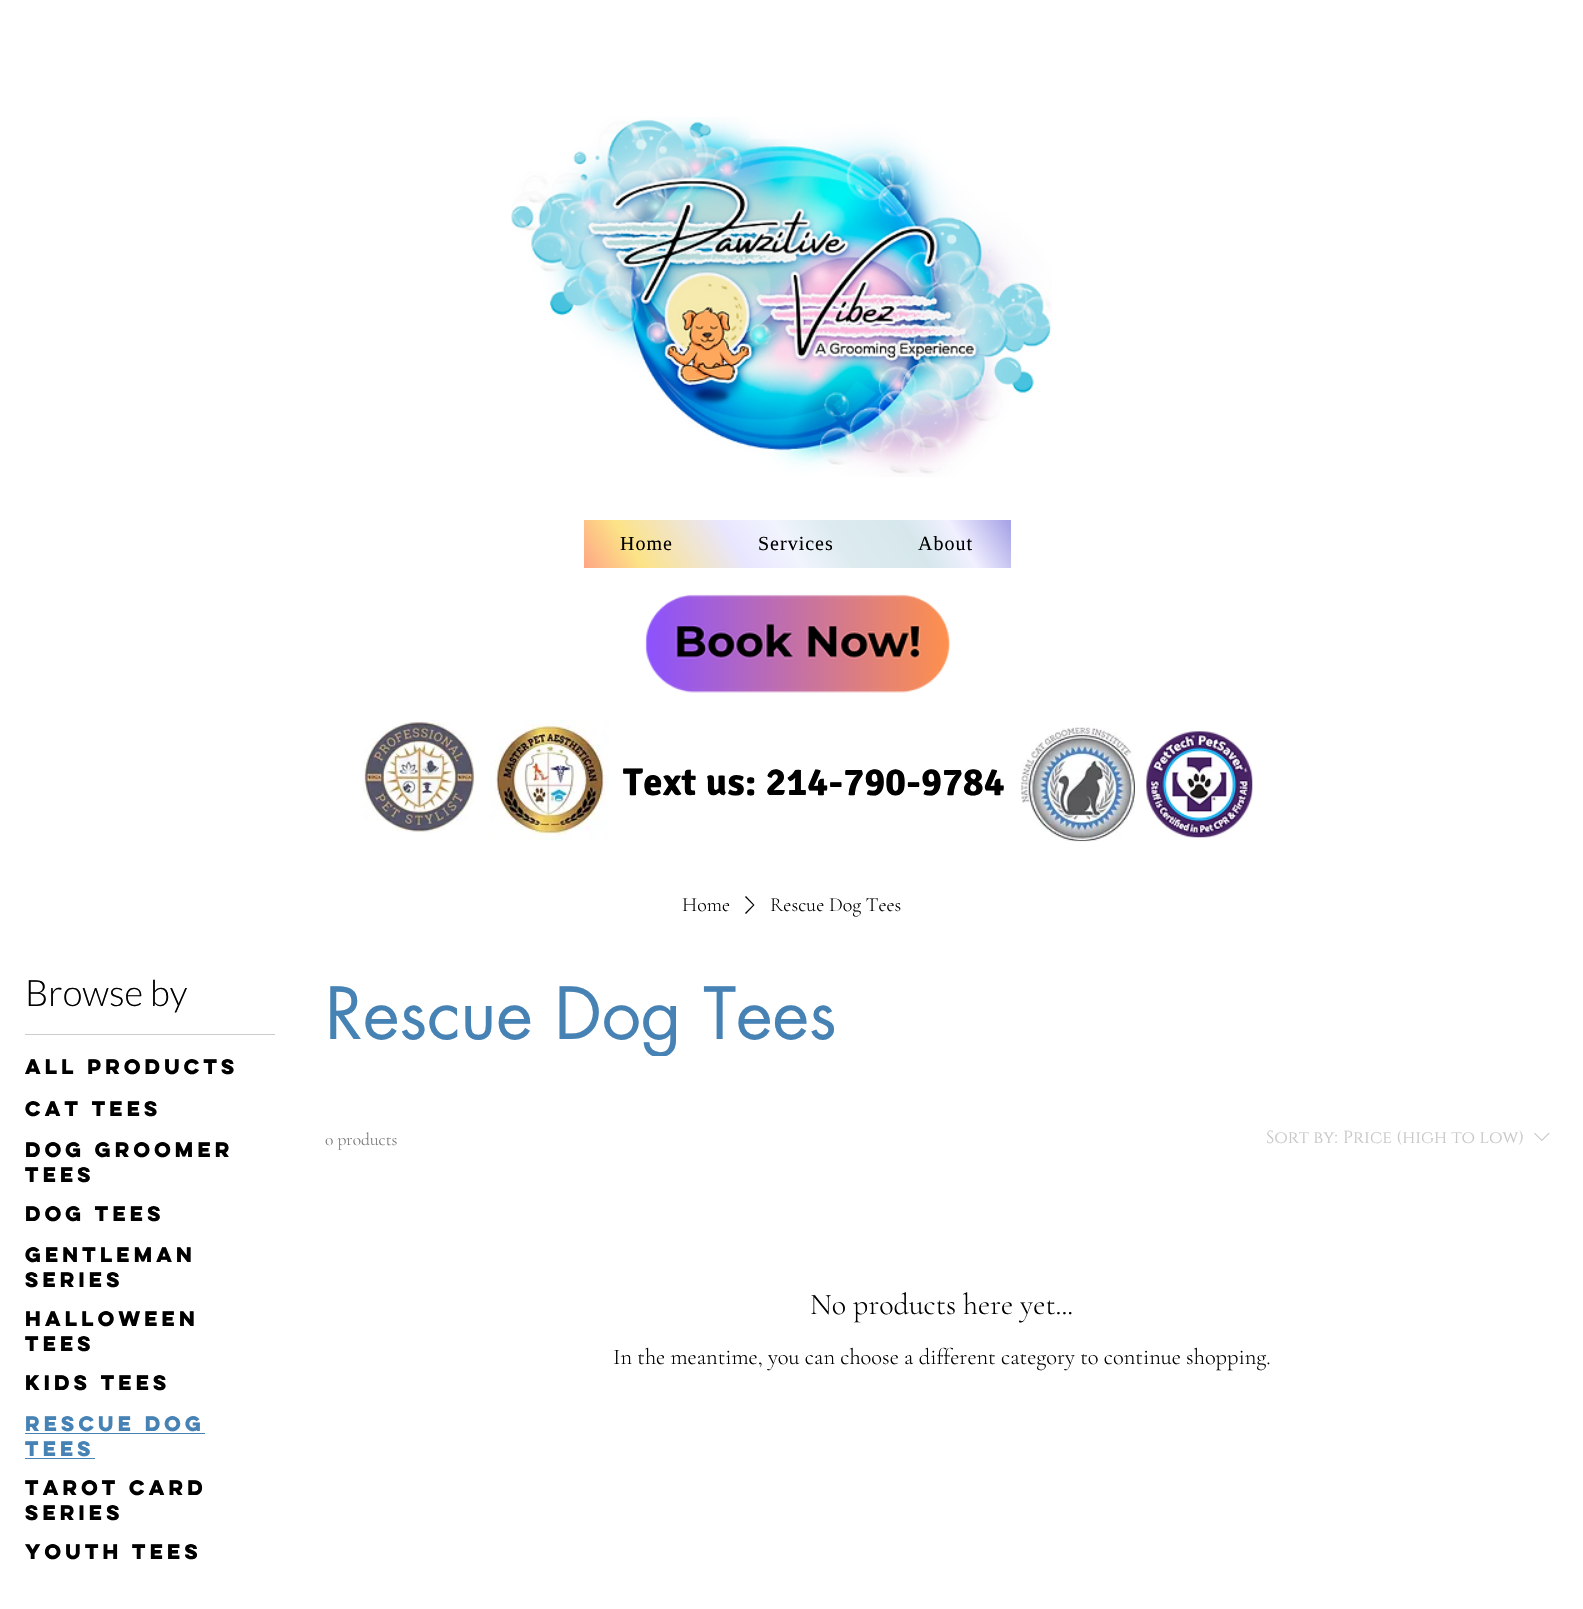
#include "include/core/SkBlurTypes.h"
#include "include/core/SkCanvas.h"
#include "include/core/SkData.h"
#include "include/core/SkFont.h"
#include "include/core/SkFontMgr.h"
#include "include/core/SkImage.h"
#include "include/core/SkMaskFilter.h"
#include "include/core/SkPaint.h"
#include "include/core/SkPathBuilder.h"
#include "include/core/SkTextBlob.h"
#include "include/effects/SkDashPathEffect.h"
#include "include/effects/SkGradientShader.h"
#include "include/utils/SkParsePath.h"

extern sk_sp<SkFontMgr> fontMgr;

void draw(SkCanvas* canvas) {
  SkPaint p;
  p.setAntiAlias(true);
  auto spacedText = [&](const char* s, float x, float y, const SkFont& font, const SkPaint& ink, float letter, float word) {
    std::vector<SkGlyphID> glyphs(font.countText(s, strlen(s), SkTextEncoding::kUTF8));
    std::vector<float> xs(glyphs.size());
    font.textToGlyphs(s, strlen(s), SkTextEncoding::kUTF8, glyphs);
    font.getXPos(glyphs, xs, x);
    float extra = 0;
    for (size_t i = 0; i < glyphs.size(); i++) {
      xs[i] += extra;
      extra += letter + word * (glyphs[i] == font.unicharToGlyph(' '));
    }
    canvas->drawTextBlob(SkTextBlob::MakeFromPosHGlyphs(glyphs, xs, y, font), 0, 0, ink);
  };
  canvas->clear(SK_ColorWHITE);
  canvas->drawImageRect(SkImages::DeferredFromEncodedData(SkData::MakeFromFileName("images/1.png")), SkRect::MakeLTRB(511, 117, 1052, 477), SkSamplingOptions());
  {
    const SkColor colors[] = {SkColorSetRGB(255, 166, 133), SkColorSetRGB(252, 227, 135), SkColorSetRGB(232, 230, 255), SkColorSetRGB(241, 244, 253), SkColorSetRGB(221, 235, 239), SkColorSetRGB(214, 231, 236), SkColorSetRGB(241, 240, 255), SkColorSetRGB(169, 165, 232)};
    const float stops[] = {0, 0.13f, 0.36f, 0.48f, 0.59f, 0.76f, 0.86f, 0.99f};
    const SkPoint ends[] = {{633, 646}, {962, 441}};
    p.setShader(SkGradientShader::MakeLinear(ends, colors, stops, 8, SkTileMode::kClamp));
    p.setAlpha(255);
  }
  canvas->drawRect(SkRect::MakeLTRB(584, 520, 1011, 568), p);
  canvas->drawImageRect(SkImages::DeferredFromEncodedData(SkData::MakeFromFileName("images/2.png")), SkRect::MakeLTRB(645, 594, 951, 693), SkSamplingOptions());
  canvas->drawImageRect(SkImages::DeferredFromEncodedData(SkData::MakeFromFileName("images/3.png")), SkRect::MakeLTRB(363, 720, 476, 833), SkSamplingOptions());
  canvas->drawImageRect(SkImages::DeferredFromEncodedData(SkData::MakeFromFileName("images/4.png")), SkRect::MakeLTRB(490, 720, 609, 840), SkSamplingOptions());
  canvas->drawImageRect(SkImages::DeferredFromEncodedData(SkData::MakeFromFileName("images/5.png")), SkRect::MakeLTRB(1021, 727, 1135, 842), SkSamplingOptions());
  canvas->drawImageRect(SkImages::DeferredFromEncodedData(SkData::MakeFromFileName("images/6.png")), SkRect::MakeLTRB(1146, 731, 1253, 838), SkSamplingOptions());
  p.setShader(nullptr);
  p.setColor(SK_ColorBLACK);
  canvas->drawPath(SkPathBuilder(SkPathFillType::kEvenOdd).moveTo(746, 896).lineTo(754.5f, 905).lineTo(746, 914).lineTo(745, 913).lineTo(753, 905).lineTo(745, 897).close().detach(), p);
  p.setColor(SkColorSetRGB(204, 204, 204));
  canvas->drawRect(SkRect::MakeLTRB(25, 1034, 275, 1035), p);
  p.setColor(SkColorSetRGB(70, 130, 180));
  canvas->drawRect(SkRect::MakeLTRB(25, 1433, 205, 1434), p);
  canvas->drawRect(SkRect::MakeLTRB(25, 1458, 95, 1459), p);
  canvas->drawImageRect(SkImages::DeferredFromEncodedData(SkData::MakeFromFileName("images/7.png")), SkRect::MakeLTRB(1534, 1132, 1550, 1141), SkSamplingOptions());
  SkFont font1(fontMgr->matchFamilyStyle("Liberation Serif", SkFontStyle::Normal()), 20);
  font1.setSubpixel(true);
  p.setColor(SK_ColorBLACK);
  spacedText("Home", 620, 550, font1, p, 1, 0);
  spacedText("Services", 758, 550, font1, p, 1, 0);
  spacedText("About", 918, 550, font1, p, 1, 0);
  SkFont font2(fontMgr->matchFamilyStyle("Signika", SkFontStyle::Bold()), 38.75f);
  font2.setSubpixel(true);
  spacedText("Text us: 214-790-9784", 623, 795, font2, p, 0.4f, 0);
  SkFont font3(fontMgr->matchFamilyStyle("Cormorant Garamond", SkFontStyle(300, SkFontStyle::kNormal_Width, SkFontStyle::kUpright_Slant)), 20);
  font3.setSubpixel(true);
  canvas->drawString("Home", 682, 911, font3, p);
  canvas->drawString("Rescue Dog Tees", 770, 911, font3, p);
  SkFont font4(fontMgr->matchFamilyStyle("Lato", SkFontStyle(300, SkFontStyle::kNormal_Width, SkFontStyle::kUpright_Slant)), 36.25f);
  font4.setSubpixel(true);
  canvas->drawString("Browse by", 25, 1006, font4, p);
  SkFont font5(fontMgr->matchFamilyStyle("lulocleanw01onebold", SkFontStyle::Bold()), 18.75f);
  font5.setSubpixel(true);
  canvas->drawString("All Products", 25, 1074, font5, p);
  canvas->drawString("Cat Tees", 25, 1116, font5, p);
  canvas->drawString("Dog Groomer", 25, 1157, font5, p);
  canvas->drawString("Tees", 25, 1182, font5, p);
  canvas->drawString("Dog Tees", 25, 1221, font5, p);
  canvas->drawString("Gentleman", 25, 1262, font5, p);
  canvas->drawString("Series", 25, 1287, font5, p);
  canvas->drawString("Halloween", 25, 1326, font5, p);
  canvas->drawString("Tees", 25, 1351, font5, p);
  canvas->drawString("Kids Tees", 25, 1390, font5, p);
  p.setColor(SkColorSetRGB(70, 130, 180));
  canvas->drawString("Rescue Dog", 25, 1431, font5, p);
  canvas->drawString("Tees", 25, 1456, font5, p);
  p.setColor(SK_ColorBLACK);
  canvas->drawString("Tarot Card", 25, 1495, font5, p);
  canvas->drawString("Series", 25, 1520, font5, p);
  canvas->drawString("Youth Tees", 25, 1559, font5, p);
  canvas->save();
  canvas->clipRect(SkRect::MakeLTRB(325, 969, 836, 1056));
  SkFont font6(fontMgr->matchFamilyStyle("futura", SkFontStyle::Normal()), 70);
  font6.setSubpixel(true);
  p.setColor(SkColorSetRGB(70, 130, 180));
  canvas->drawString("Rescue Dog Tees", 325, 1039, font6, p);
  canvas->restore();
  SkFont font7(fontMgr->matchFamilyStyle("Cormorant Garamond", SkFontStyle(300, SkFontStyle::kNormal_Width, SkFontStyle::kUpright_Slant)), 17.5f);
  font7.setSubpixel(true);
  p.setColor(SkColorSetRGB(117, 117, 117));
  canvas->drawString("0 products", 325, 1145, font7, p);
  SkFont font8(fontMgr->matchFamilyStyle("Cinzel", SkFontStyle::Normal()), 17.5f);
  font8.setSubpixel(true);
  p.setColor(SkColorSetRGB(199, 199, 199));
  canvas->drawString("Sort by:", 1266, 1143, font8, p);
  canvas->drawString("Price (high to low)", 1343, 1143, font8, p);
  SkFont font9(fontMgr->matchFamilyStyle("Cormorant Garamond", SkFontStyle(300, SkFontStyle::kNormal_Width, SkFontStyle::kUpright_Slant)), 30);
  font9.setSubpixel(true);
  p.setColor(SK_ColorBLACK);
  canvas->drawString("No products here yet...", 810, 1314, font9, p);
  SkFont font10(fontMgr->matchFamilyStyle("Cormorant Garamond", SkFontStyle(300, SkFontStyle::kNormal_Width, SkFontStyle::kUpright_Slant)), 22.5f);
  font10.setSubpixel(true);
  canvas->drawString("In the meantime, you can choose a different category to continue shopping.", 613, 1364, font10, p);
}
